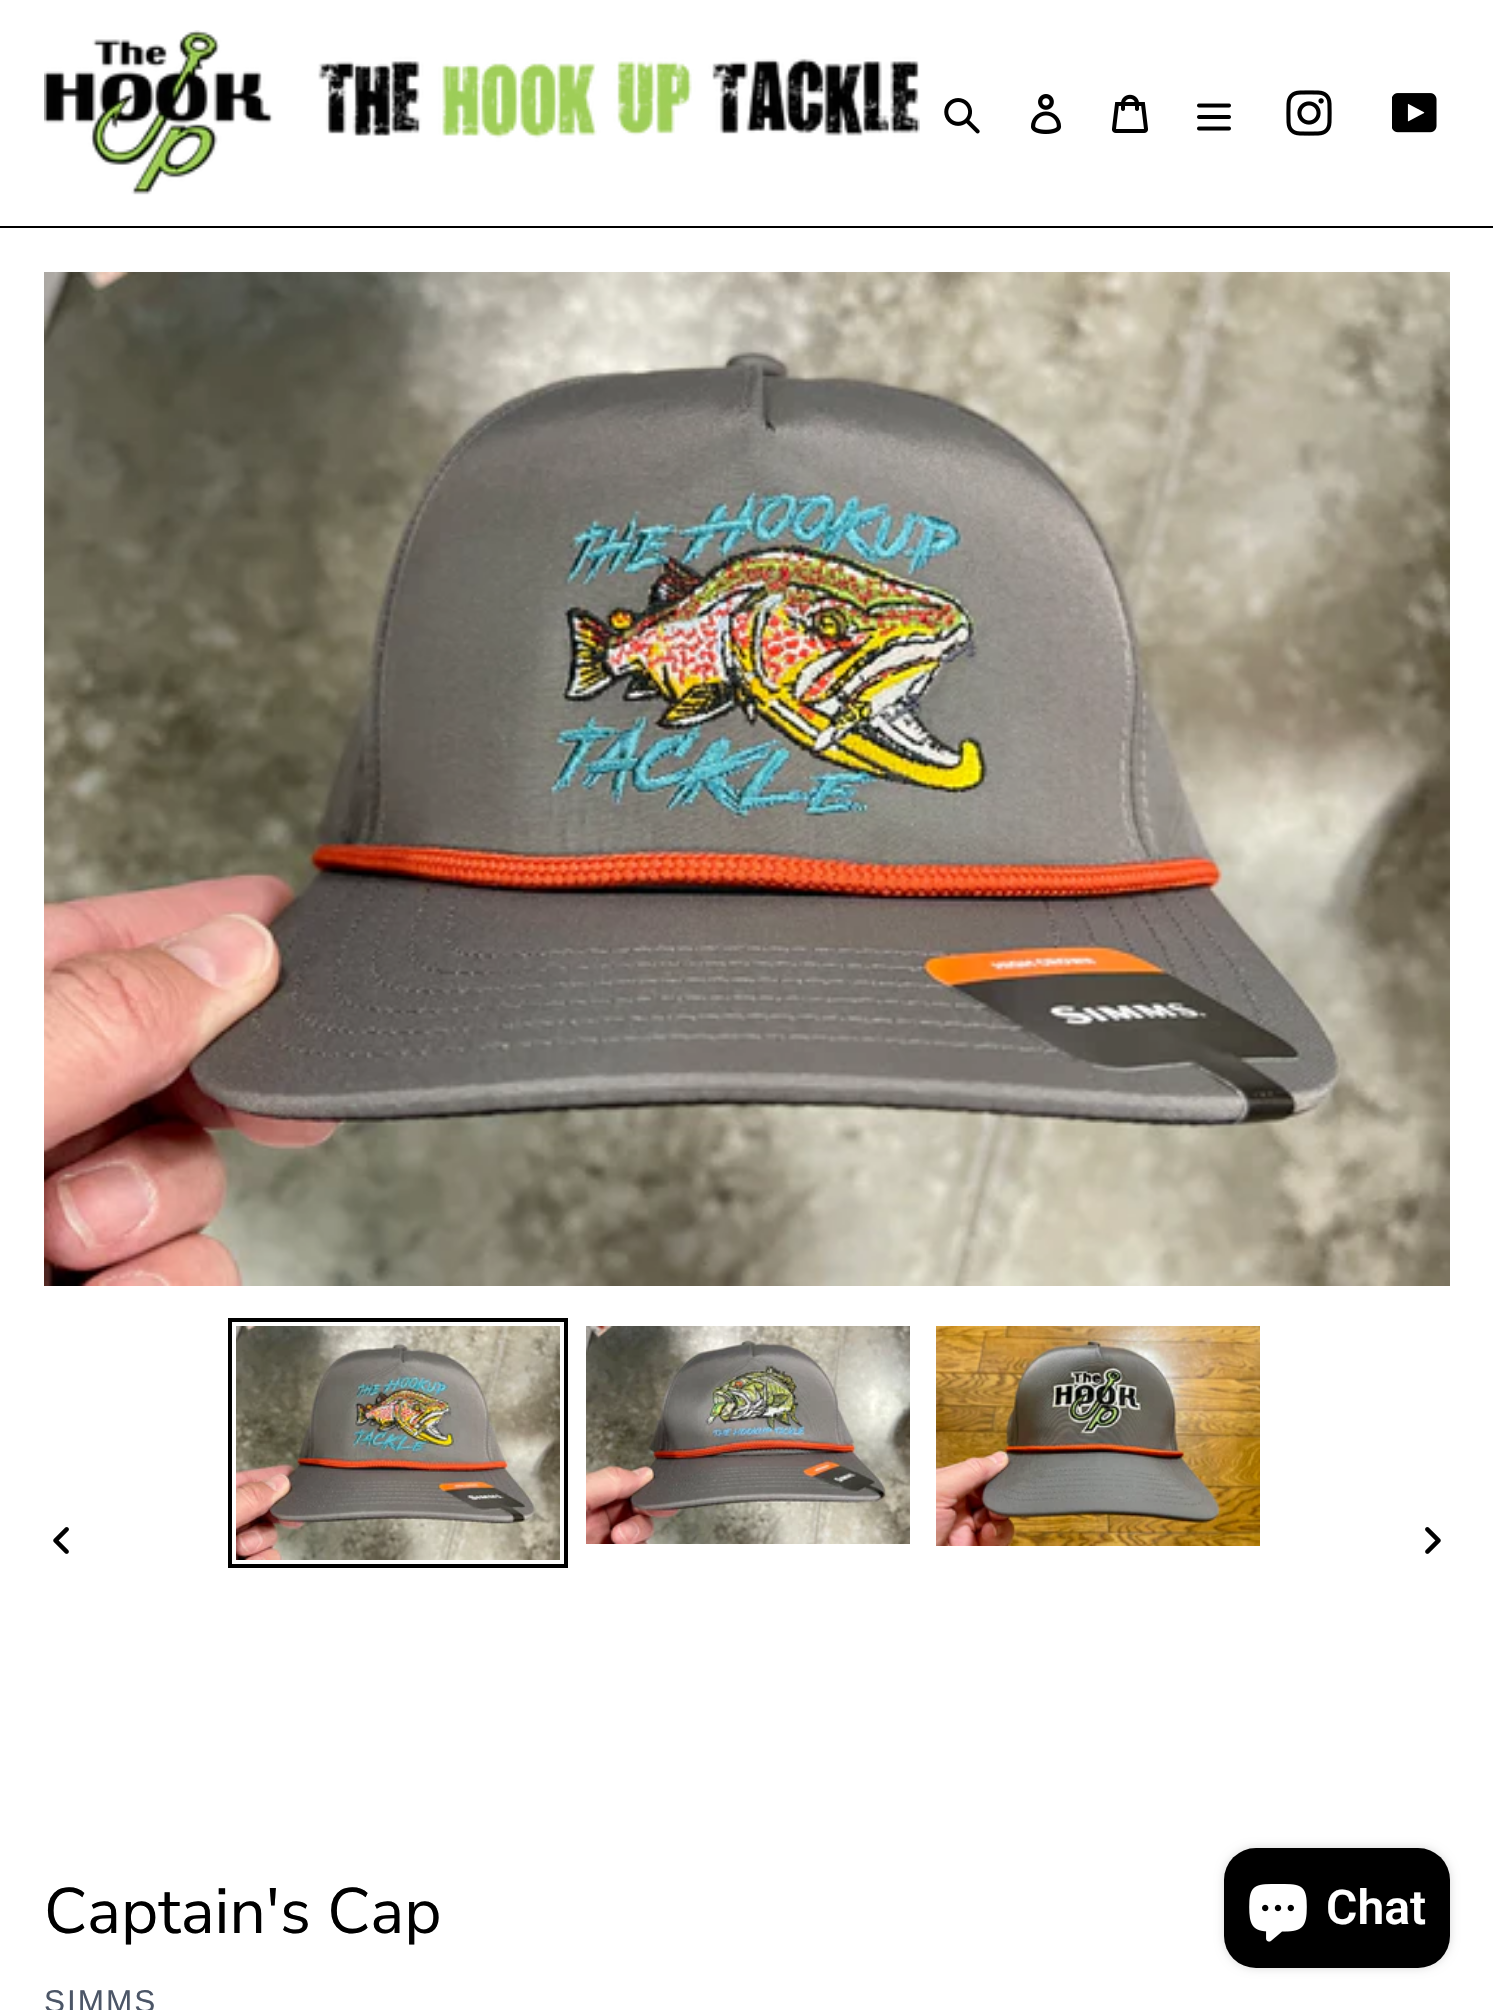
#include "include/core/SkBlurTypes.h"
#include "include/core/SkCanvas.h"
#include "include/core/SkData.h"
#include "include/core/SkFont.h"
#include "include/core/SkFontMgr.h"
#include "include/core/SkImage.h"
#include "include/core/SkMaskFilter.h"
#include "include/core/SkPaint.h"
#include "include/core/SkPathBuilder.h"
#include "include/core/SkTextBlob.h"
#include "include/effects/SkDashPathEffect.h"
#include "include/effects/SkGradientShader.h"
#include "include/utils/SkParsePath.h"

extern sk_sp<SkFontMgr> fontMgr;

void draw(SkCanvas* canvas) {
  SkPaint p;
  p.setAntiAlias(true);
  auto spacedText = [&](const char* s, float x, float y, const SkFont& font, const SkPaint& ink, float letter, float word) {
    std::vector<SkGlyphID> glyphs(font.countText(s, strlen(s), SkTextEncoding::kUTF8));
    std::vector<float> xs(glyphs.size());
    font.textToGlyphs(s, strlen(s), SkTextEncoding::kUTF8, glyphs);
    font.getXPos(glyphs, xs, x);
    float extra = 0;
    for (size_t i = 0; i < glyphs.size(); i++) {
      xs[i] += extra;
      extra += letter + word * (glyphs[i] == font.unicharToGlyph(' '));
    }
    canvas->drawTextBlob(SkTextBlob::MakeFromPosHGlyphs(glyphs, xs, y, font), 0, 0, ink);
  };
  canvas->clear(SK_ColorWHITE);
  p.setColor(SK_ColorBLACK);
  canvas->drawRect(SkRect::MakeLTRB(0, 226, 1493, 228), p);
  canvas->drawImageRect(SkImages::DeferredFromEncodedData(SkData::MakeFromFileName("images/1.png")), SkRect::MakeLTRB(44, 30, 920, 195), SkSamplingOptions());
  canvas->drawImageRect(SkImages::DeferredFromEncodedData(SkData::MakeFromFileName("images/2.png")), SkRect::MakeLTRB(944, 98, 980, 134), SkSamplingOptions());
  canvas->drawImageRect(SkImages::DeferredFromEncodedData(SkData::MakeFromFileName("images/3.png")), SkRect::MakeLTRB(1031, 94, 1062, 134), SkSamplingOptions());
  canvas->drawImageRect(SkImages::DeferredFromEncodedData(SkData::MakeFromFileName("images/4.png")), SkRect::MakeLTRB(1112, 94, 1148, 133), SkSamplingOptions());
  canvas->drawImageRect(SkImages::DeferredFromEncodedData(SkData::MakeFromFileName("images/5.png")), SkRect::MakeLTRB(1197, 103, 1231, 131), SkSamplingOptions());
  canvas->drawImageRect(SkImages::DeferredFromEncodedData(SkData::MakeFromFileName("images/6.png")), SkRect::MakeLTRB(1286, 90, 1332, 136), SkSamplingOptions());
  canvas->drawImageRect(SkImages::DeferredFromEncodedData(SkData::MakeFromFileName("images/7.png")), SkRect::MakeLTRB(1392, 93, 1437, 133), SkSamplingOptions());
  canvas->drawImageRect(SkImages::DeferredFromEncodedData(SkData::MakeFromFileName("images/8.png")), SkRect::MakeLTRB(44, 272, 1450, 1286), SkSamplingOptions());
  canvas->drawImageRect(SkImages::DeferredFromEncodedData(SkData::MakeFromFileName("images/9.png")), SkRect::MakeLTRB(53, 1527, 69, 1554), SkSamplingOptions());
  p.setStyle(SkPaint::kStroke_Style);
  p.setStrokeWidth(4);
  canvas->drawRect(SkRect::MakeLTRB(230, 1320, 566, 1566), p);
  canvas->drawImageRect(SkImages::DeferredFromEncodedData(SkData::MakeFromFileName("images/10.png")), SkRect::MakeLTRB(236, 1326, 560, 1560), SkSamplingOptions());
  canvas->drawImageRect(SkImages::DeferredFromEncodedData(SkData::MakeFromFileName("images/11.png")), SkRect::MakeLTRB(586, 1326, 910, 1544), SkSamplingOptions());
  canvas->drawImageRect(SkImages::DeferredFromEncodedData(SkData::MakeFromFileName("images/12.png")), SkRect::MakeLTRB(936, 1326, 1260, 1546), SkSamplingOptions());
  canvas->drawImageRect(SkImages::DeferredFromEncodedData(SkData::MakeFromFileName("images/13.png")), SkRect::MakeLTRB(1425, 1527, 1441, 1554), SkSamplingOptions());
  p.setStyle(SkPaint::kFill_Style);
  p.setColor(SkColorSetARGB(38, 0, 0, 0));
  p.setMaskFilter(SkMaskFilter::MakeBlur(kNormal_SkBlurStyle, 5));
  canvas->drawRoundRect(SkRect::MakeLTRB(1224, 1848, 1450, 1968), 32, 32, p);
  p.setMaskFilter(nullptr);
  p.setColor(SK_ColorBLACK);
  canvas->drawRoundRect(SkRect::MakeLTRB(1224, 1848, 1450, 1968), 32, 32, p);
  canvas->drawImageRect(SkImages::DeferredFromEncodedData(SkData::MakeFromFileName("images/14.png")), SkRect::MakeLTRB(1249, 1884, 1307, 1942), SkSamplingOptions());
  SkFont font1(fontMgr->matchFamilyStyle("Nunito Sans", SkFontStyle::Normal()), 64);
  font1.setSubpixel(true);
  canvas->drawString("Captain's Cap", 44, 1933, font1, p);
  SkFont font2(fontMgr->matchFamilyStyle("Liberation Sans", SkFontStyle::Normal()), 31.5f);
  font2.setSubpixel(true);
  p.setColor(SkColorSetRGB(76, 86, 103));
  spacedText("SIMMS", 44, 2012, font2, p, 2, 0);
  SkFont font3(fontMgr->matchFamilyStyle("Roboto", SkFontStyle(600, SkFontStyle::kNormal_Width, SkFontStyle::kUpright_Slant)), 48);
  font3.setSubpixel(true);
  p.setColor(SK_ColorWHITE);
  canvas->drawString("Chat", 1326, 1924, font3, p);
}
